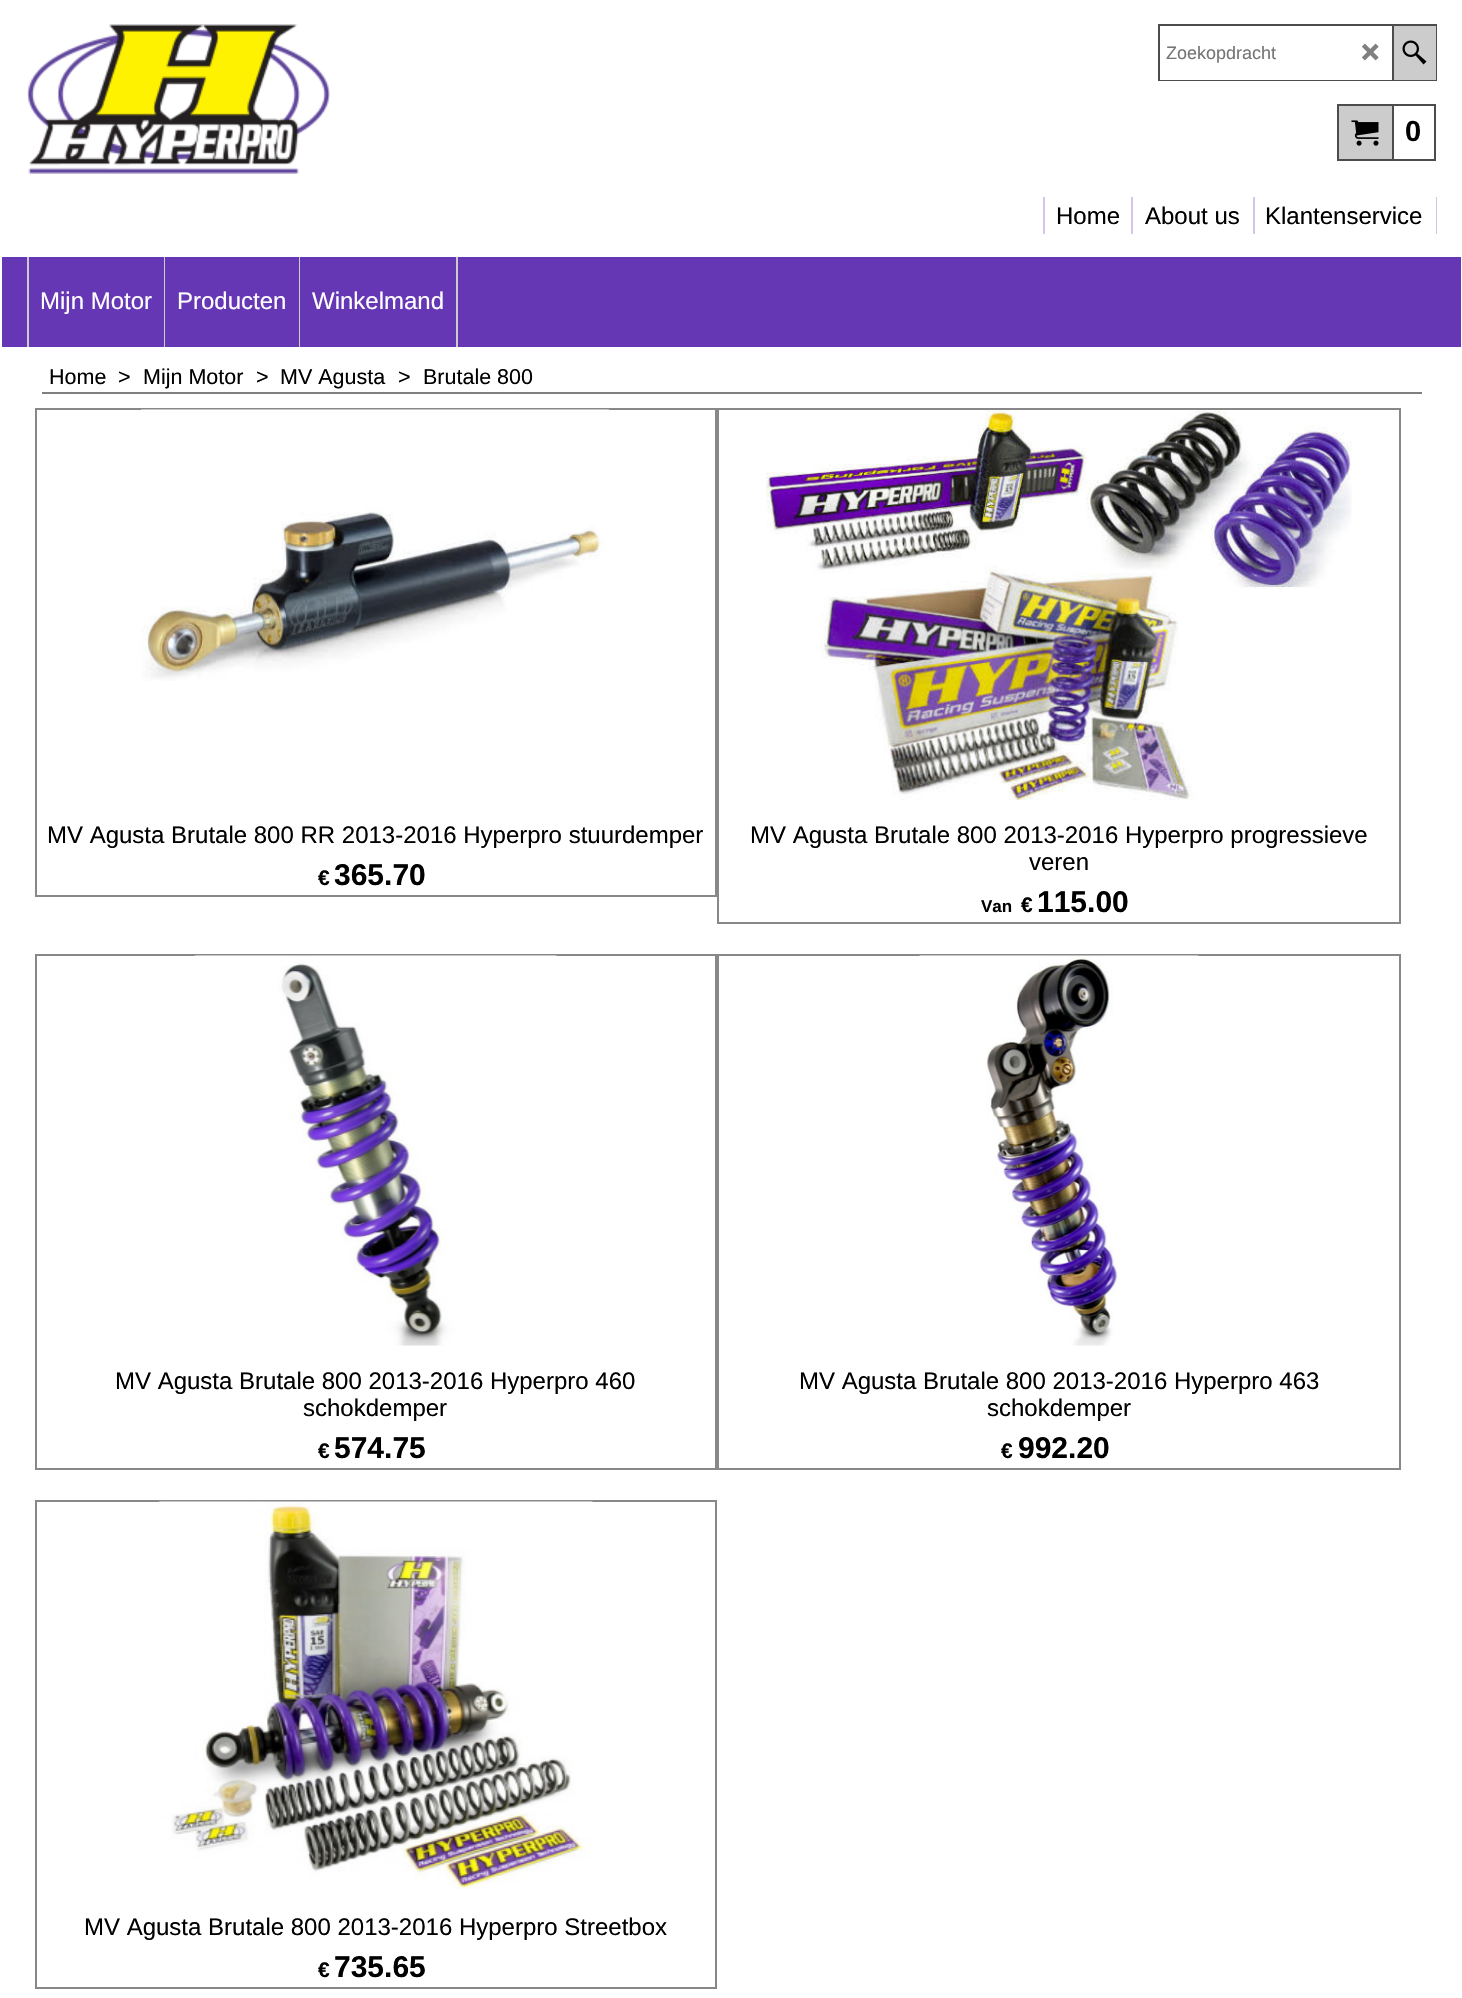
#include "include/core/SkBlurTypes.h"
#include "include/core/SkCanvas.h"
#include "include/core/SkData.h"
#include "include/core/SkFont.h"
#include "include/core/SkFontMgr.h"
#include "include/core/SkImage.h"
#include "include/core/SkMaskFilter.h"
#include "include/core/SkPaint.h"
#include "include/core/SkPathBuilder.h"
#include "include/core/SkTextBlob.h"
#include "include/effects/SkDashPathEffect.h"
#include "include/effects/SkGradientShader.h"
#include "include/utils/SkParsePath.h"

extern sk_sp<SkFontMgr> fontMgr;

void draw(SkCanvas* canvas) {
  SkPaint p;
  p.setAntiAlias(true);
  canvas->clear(SK_ColorWHITE);
  canvas->drawImageRect(SkImages::DeferredFromEncodedData(SkData::MakeFromFileName("images/1.png")), SkRect::MakeLTRB(27, 24, 330, 174), SkSamplingOptions());
  p.setStyle(SkPaint::kStroke_Style);
  p.setStrokeWidth(2);
  p.setColor(SkColorSetRGB(76, 76, 76));
  canvas->drawRect(SkRect::MakeLTRB(1159, 25, 1436, 80), p);
  p.setStyle(SkPaint::kFill_Style);
  p.setColor(SK_ColorWHITE);
  canvas->drawRect(SkRect::MakeLTRB(1160, 79, 1392, 80), p);
  canvas->drawImageRect(SkImages::DeferredFromEncodedData(SkData::MakeFromFileName("images/2.png")), SkRect::MakeLTRB(1362, 43, 1379, 61), SkSamplingOptions());
  p.setColor(SkColorSetRGB(204, 204, 204));
  canvas->drawRect(SkRect::MakeLTRB(1394, 26, 1436, 80), p);
  p.setColor(SkColorSetRGB(76, 76, 76));
  canvas->drawRect(SkRect::MakeLTRB(1392, 26, 1394, 80), p);
  canvas->drawImageRect(SkImages::DeferredFromEncodedData(SkData::MakeFromFileName("images/3.png")), SkRect::MakeLTRB(1402, 40, 1427, 65), SkSamplingOptions());
  p.setColor(SkColorSetRGB(204, 204, 204));
  canvas->drawRect(SkRect::MakeLTRB(1338, 105, 1393, 160), p);
  p.setStyle(SkPaint::kStroke_Style);
  p.setColor(SkColorSetRGB(76, 76, 76));
  canvas->drawRect(SkRect::MakeLTRB(1338, 105, 1393, 160), p);
  canvas->drawImageRect(SkImages::DeferredFromEncodedData(SkData::MakeFromFileName("images/4.png")), SkRect::MakeLTRB(1351, 120, 1379, 146), SkSamplingOptions());
  canvas->drawRect(SkRect::MakeLTRB(1393, 105, 1435, 160), p);
  p.setStyle(SkPaint::kFill_Style);
  p.setColor(SkColorSetRGB(211, 197, 233));
  canvas->drawRect(SkRect::MakeLTRB(1043, 197, 1045, 234), p);
  canvas->drawRect(SkRect::MakeLTRB(1131, 197, 1133, 234), p);
  canvas->drawRect(SkRect::MakeLTRB(1253, 197, 1255, 234), p);
  canvas->drawRect(SkRect::MakeLTRB(1436, 197, 1437, 234), p);
  p.setColor(SkColorSetRGB(101, 55, 180));
  canvas->drawRect(SkRect::MakeLTRB(2, 257, 1461, 347), p);
  p.setColor(SkColorSetRGB(204, 204, 204));
  canvas->drawRect(SkRect::MakeLTRB(27, 257, 29, 347), p);
  canvas->drawRect(SkRect::MakeLTRB(164, 257, 165, 347), p);
  canvas->drawRect(SkRect::MakeLTRB(299, 257, 300, 347), p);
  canvas->drawRect(SkRect::MakeLTRB(456, 257, 458, 347), p);
  p.setColor(SkColorSetRGB(127, 127, 127));
  canvas->drawRect(SkRect::MakeLTRB(42, 392, 1422, 394), p);
  p.setStyle(SkPaint::kStroke_Style);
  p.setColor(SkColorSetRGB(136, 136, 136));
  canvas->drawRect(SkRect::MakeLTRB(36, 409, 716, 896), p);
  canvas->drawImageRect(SkImages::DeferredFromEncodedData(SkData::MakeFromFileName("images/5.png")), SkRect::MakeLTRB(141, 409, 610, 681), SkSamplingOptions());
  canvas->drawRect(SkRect::MakeLTRB(718, 409, 1400, 923), p);
  canvas->drawImageRect(SkImages::DeferredFromEncodedData(SkData::MakeFromFileName("images/6.png")), SkRect::MakeLTRB(766, 410, 1352, 800), SkSamplingOptions());
  canvas->drawRect(SkRect::MakeLTRB(36, 955, 716, 1469), p);
  canvas->drawImageRect(SkImages::DeferredFromEncodedData(SkData::MakeFromFileName("images/7.png")), SkRect::MakeLTRB(194, 955, 557, 1346), SkSamplingOptions());
  canvas->drawRect(SkRect::MakeLTRB(718, 955, 1400, 1469), p);
  canvas->drawImageRect(SkImages::DeferredFromEncodedData(SkData::MakeFromFileName("images/8.png")), SkRect::MakeLTRB(919, 955, 1199, 1346), SkSamplingOptions());
  canvas->drawRect(SkRect::MakeLTRB(36, 1501, 716, 1988), p);
  canvas->drawImageRect(SkImages::DeferredFromEncodedData(SkData::MakeFromFileName("images/9.png")), SkRect::MakeLTRB(158, 1501, 593, 1889), SkSamplingOptions());
  SkFont font1(fontMgr->matchFamilyStyle("Liberation Sans", SkFontStyle::Normal()), 18);
  font1.setSubpixel(true);
  p.setStyle(SkPaint::kFill_Style);
  p.setColor(SkColorSetRGB(117, 117, 117));
  canvas->drawString("Zoekopdracht", 1166, 59, font1, p);
  SkFont font2(fontMgr->matchFamilyStyle("Liberation Sans", SkFontStyle::Bold()), 29);
  font2.setSubpixel(true);
  p.setColor(SK_ColorBLACK);
  canvas->drawString("0", 1405, 141, font2, p);
  SkFont font3(fontMgr->matchFamilyStyle("Liberation Sans", SkFontStyle::Normal()), 24);
  font3.setSubpixel(true);
  canvas->drawString("Home", 1056, 224, font3, p);
  canvas->drawString("About us", 1145, 224, font3, p);
  canvas->drawString("Klantenservice", 1265, 224, font3, p);
  p.setColor(SK_ColorWHITE);
  canvas->drawString("Mijn Motor", 40, 309, font3, p);
  canvas->drawString("Producten", 177, 309, font3, p);
  canvas->drawString("Winkelmand", 312, 309, font3, p);
  SkFont font4(fontMgr->matchFamilyStyle("Liberation Sans", SkFontStyle::Normal()), 21.5f);
  font4.setSubpixel(true);
  p.setColor(SK_ColorBLACK);
  canvas->drawString("Home", 49, 384, font4, p);
  canvas->drawString(">", 118, 384, font4, p);
  canvas->drawString("Mijn Motor", 143, 384, font4, p);
  canvas->drawString(">", 256, 384, font4, p);
  canvas->drawString("MV Agusta", 280, 384, font4, p);
  canvas->drawString(">", 398, 384, font4, p);
  canvas->drawString("Brutale 800", 423, 384, font4, p);
  canvas->drawString("MV Agusta Brutale 800 RR 2013-2016 Hyperpro stuurdemper", 47, 843, font3, p);
  SkFont font5(fontMgr->matchFamilyStyle("Liberation Sans", SkFontStyle::Bold()), 21);
  font5.setSubpixel(true);
  canvas->drawString("€", 318, 885, font5, p);
  SkFont font6(fontMgr->matchFamilyStyle("Liberation Sans", SkFontStyle::Bold()), 30);
  font6.setSubpixel(true);
  canvas->drawString("365.70", 334, 885, font6, p);
  canvas->drawString("MV Agusta Brutale 800 2013-2016 Hyperpro progressieve", 750, 843, font3, p);
  canvas->drawString("veren", 1029, 870, font3, p);
  SkFont font7(fontMgr->matchFamilyStyle("Liberation Sans", SkFontStyle::Bold()), 17);
  font7.setSubpixel(true);
  canvas->drawString("Van", 981, 912, font7, p);
  canvas->drawString("€", 1021, 912, font5, p);
  canvas->drawString("115.00", 1037, 912, font6, p);
  canvas->drawString("MV Agusta Brutale 800 2013-2016 Hyperpro 460", 115, 1389, font3, p);
  canvas->drawString("schokdemper", 303, 1416, font3, p);
  canvas->drawString("€", 318, 1458, font5, p);
  canvas->drawString("574.75", 334, 1458, font6, p);
  canvas->drawString("MV Agusta Brutale 800 2013-2016 Hyperpro 463", 799, 1389, font3, p);
  canvas->drawString("schokdemper", 987, 1416, font3, p);
  canvas->drawString("€", 1001, 1458, font5, p);
  canvas->drawString("992.20", 1018, 1458, font6, p);
  canvas->drawString("MV Agusta Brutale 800 2013-2016 Hyperpro Streetbox", 84, 1935, font3, p);
  canvas->drawString("€", 318, 1977, font5, p);
  canvas->drawString("735.65", 334, 1977, font6, p);
}
